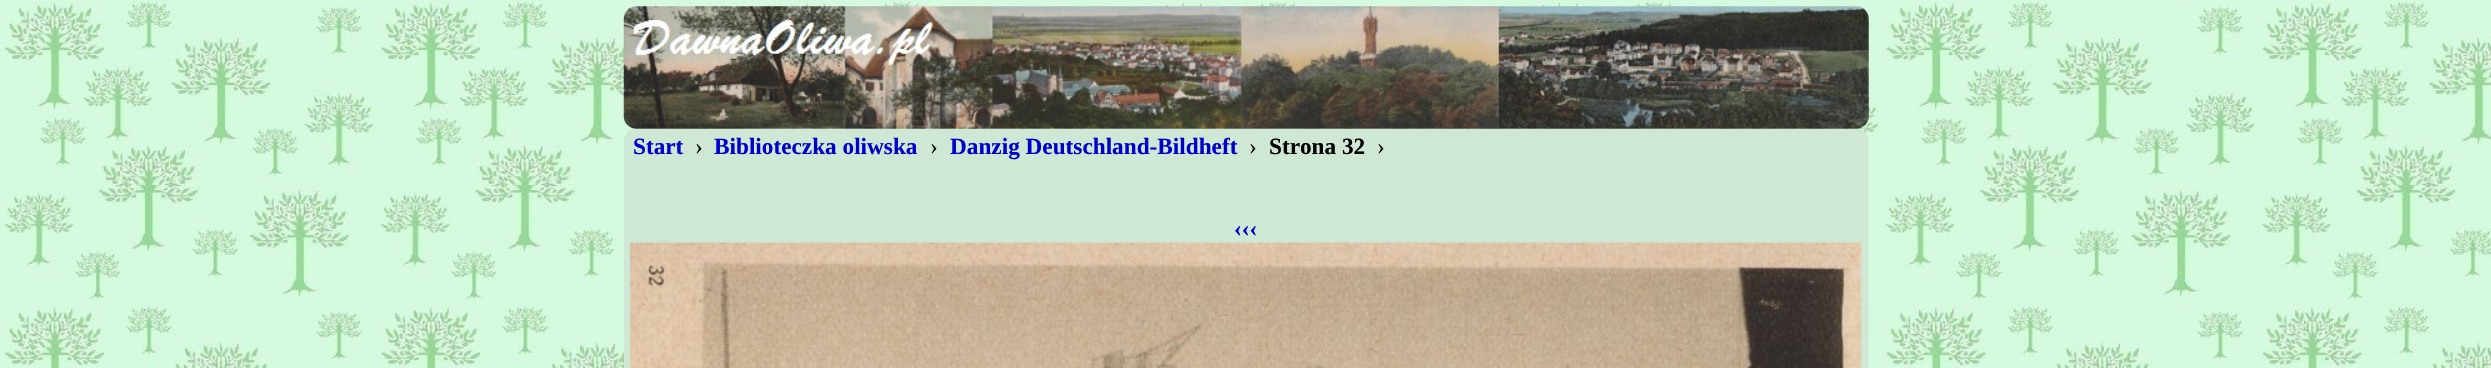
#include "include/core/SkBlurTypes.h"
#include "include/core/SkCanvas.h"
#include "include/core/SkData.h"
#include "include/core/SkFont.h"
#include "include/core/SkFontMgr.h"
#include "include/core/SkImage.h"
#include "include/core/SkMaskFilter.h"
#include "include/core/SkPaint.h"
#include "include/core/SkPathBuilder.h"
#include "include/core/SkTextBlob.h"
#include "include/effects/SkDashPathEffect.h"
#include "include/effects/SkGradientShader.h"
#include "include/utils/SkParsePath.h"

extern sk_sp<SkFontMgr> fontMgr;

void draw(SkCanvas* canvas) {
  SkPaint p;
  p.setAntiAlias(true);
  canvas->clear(SK_ColorWHITE);
  canvas->drawImageRect(SkImages::DeferredFromEncodedData(SkData::MakeFromFileName("images/1.png")), SkRect::MakeLTRB(0, 0, 2491, 368), SkSamplingOptions());
  canvas->drawImageRect(SkImages::DeferredFromEncodedData(SkData::MakeFromFileName("images/2.png")), SkRect::MakeLTRB(623, 6, 1869, 129), SkSamplingOptions());
  canvas->drawImageRect(SkImages::DeferredFromEncodedData(SkData::MakeFromFileName("images/3.png")), SkRect::MakeLTRB(624, 128, 1869, 368), SkSamplingOptions());
  canvas->drawImageRect(SkImages::DeferredFromEncodedData(SkData::MakeFromFileName("images/4.png")), SkRect::MakeLTRB(630, 242, 1862, 368), SkSamplingOptions());
  SkFont font1(fontMgr->matchFamilyStyle("Liberation Serif", SkFontStyle::Bold()), 23.25f);
  font1.setSubpixel(true);
  p.setColor(SkColorSetRGB(0, 0, 205));
  canvas->drawString("Start", 633, 154, font1, p);
  SkFont font2(fontMgr->matchFamilyStyle("Liberation Serif", SkFontStyle::Normal()), 23.25f);
  font2.setSubpixel(true);
  p.setColor(SK_ColorBLACK);
  canvas->drawString("›", 695, 154, font2, p);
  p.setColor(SkColorSetRGB(0, 0, 205));
  canvas->drawString("Biblioteczka oliwska", 714, 154, font1, p);
  p.setColor(SK_ColorBLACK);
  canvas->drawString("›", 930, 154, font2, p);
  p.setColor(SkColorSetRGB(0, 0, 205));
  canvas->drawString("Danzig Deutschland-Bildheft", 950, 154, font1, p);
  p.setColor(SK_ColorBLACK);
  canvas->drawString("›", 1249, 154, font2, p);
  canvas->drawString("Strona 32", 1269, 154, font1, p);
  canvas->drawString("›", 1377, 154, font2, p);
  p.setColor(SkColorSetRGB(0, 0, 205));
  canvas->drawString("‹‹‹", 1234, 236, font1, p);
}
